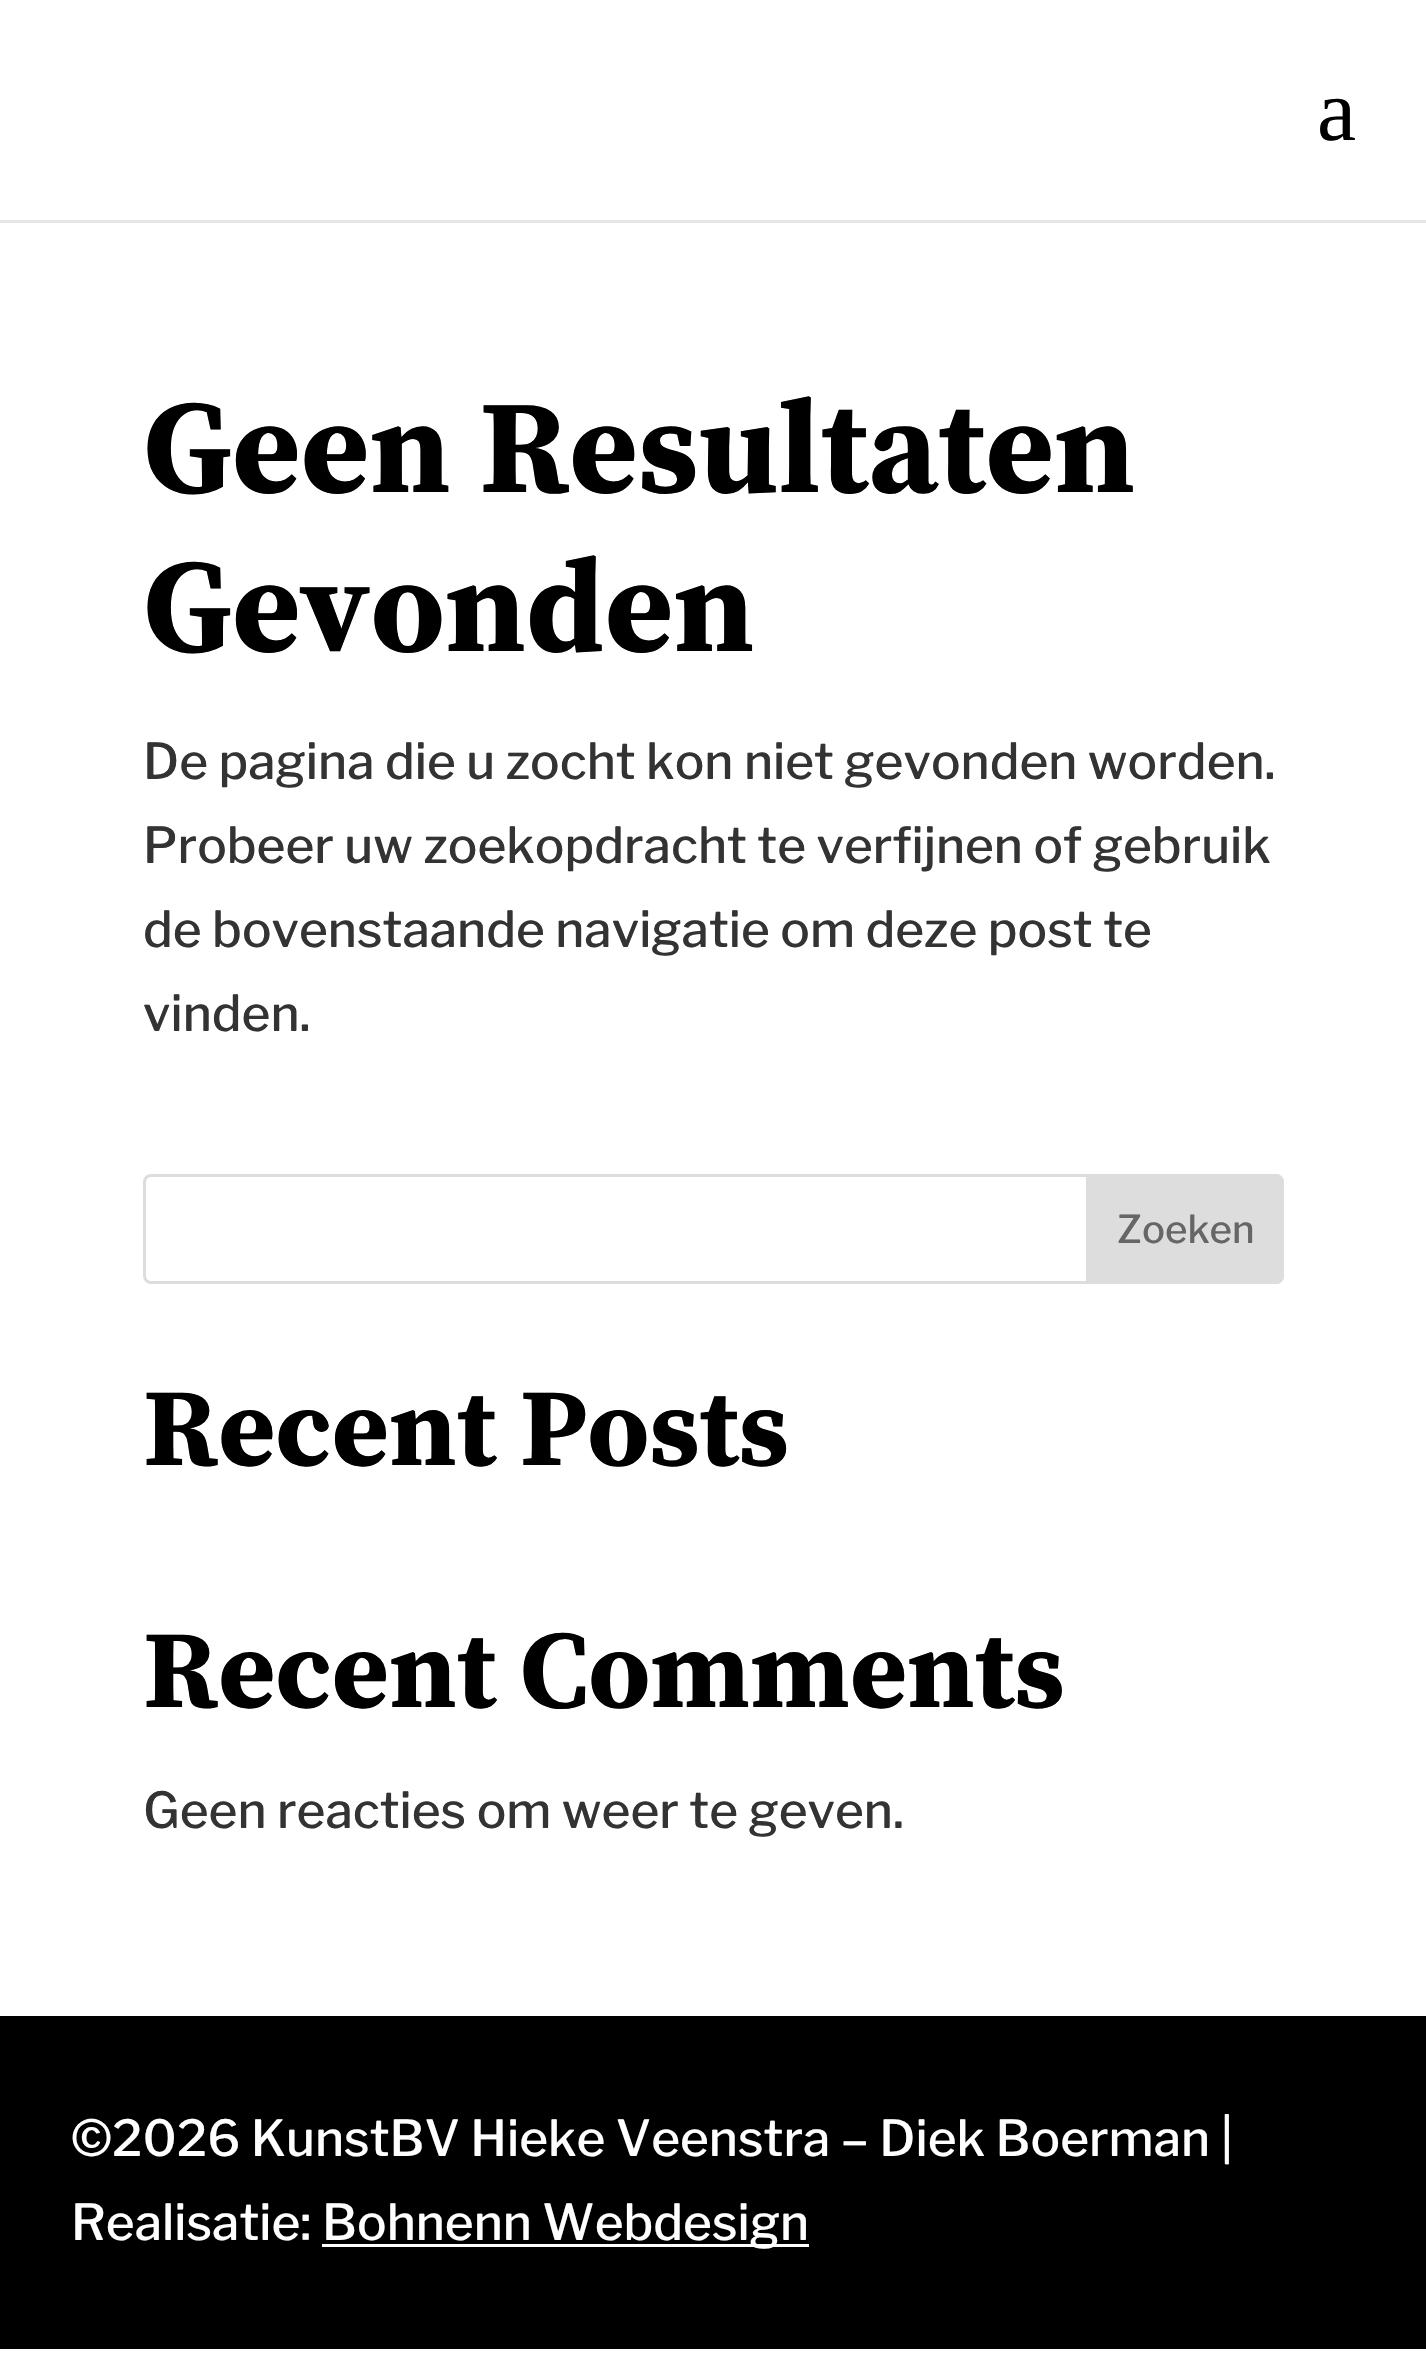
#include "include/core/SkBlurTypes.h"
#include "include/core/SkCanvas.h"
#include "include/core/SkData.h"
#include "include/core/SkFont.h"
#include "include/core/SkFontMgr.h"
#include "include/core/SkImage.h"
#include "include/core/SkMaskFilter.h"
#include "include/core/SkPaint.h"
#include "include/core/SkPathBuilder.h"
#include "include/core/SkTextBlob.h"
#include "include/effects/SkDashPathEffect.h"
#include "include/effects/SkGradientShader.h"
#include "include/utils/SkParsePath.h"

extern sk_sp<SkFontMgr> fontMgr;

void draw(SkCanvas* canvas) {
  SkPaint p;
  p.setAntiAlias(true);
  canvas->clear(SK_ColorWHITE);
  p.setColor(SkColorSetRGB(230, 230, 230));
  canvas->drawRect(SkRect::MakeLTRB(0, 220, 1426, 223), p);
  p.setStyle(SkPaint::kStroke_Style);
  p.setStrokeWidth(3);
  p.setColor(SkColorSetRGB(221, 221, 221));
  canvas->drawRoundRect(SkRect::MakeLTRB(144.5f, 1175.5f, 1282.5f, 1282.5f), 6.5f, 6.5f, p);
  p.setStyle(SkPaint::kFill_Style);
  canvas->drawPath(SkPathBuilder().moveTo(1087.5f, 1175.5f).lineTo(1276, 1175.5f).cubicTo(1279.5f, 1175.5f, 1282.5f, 1178.5f, 1282.5f, 1182).lineTo(1282.5f, 1276).cubicTo(1282.5f, 1279.5f, 1279.5f, 1282.5f, 1276, 1282.5f).lineTo(1087.5f, 1282.5f).close().detach(), p);
  p.setStyle(SkPaint::kStroke_Style);
  canvas->drawPath(SkPathBuilder().moveTo(1087.5f, 1175.5f).lineTo(1276, 1175.5f).cubicTo(1279.5f, 1175.5f, 1282.5f, 1178.5f, 1282.5f, 1182).lineTo(1282.5f, 1276).cubicTo(1282.5f, 1279.5f, 1279.5f, 1282.5f, 1276, 1282.5f).lineTo(1087.5f, 1282.5f).close().detach(), p);
  p.setStyle(SkPaint::kFill_Style);
  p.setColor(SK_ColorBLACK);
  canvas->drawRect(SkRect::MakeLTRB(0, 2016, 1426, 2349), p);
  p.setColor(SK_ColorWHITE);
  canvas->drawRect(SkRect::MakeLTRB(322, 2244, 809, 2247), p);
  SkFont font1(fontMgr->matchFamilyStyle("Liberation Serif", SkFontStyle::Normal()), 88);
  font1.setSubpixel(true);
  p.setColor(SK_ColorBLACK);
  canvas->drawString("a", 1317, 140, font1, p);
  SkFont font2(fontMgr->matchFamilyStyle("Source Serif Pro", SkFontStyle::Bold()), 132);
  font2.setSubpixel(true);
  canvas->drawString("Geen Resultaten", 143, 492, font2, p);
  canvas->drawString("Gevonden", 143, 651, font2, p);
  SkFont font3(fontMgr->matchFamilyStyle("Libre Franklin", SkFontStyle(500, SkFontStyle::kNormal_Width, SkFontStyle::kUpright_Slant)), 49.5f);
  font3.setSubpixel(true);
  p.setColor(SkColorSetRGB(51, 51, 51));
  canvas->drawString("De pagina die u zocht kon niet gevonden worden.", 143, 779, font3, p);
  canvas->drawString("Probeer uw zoekopdracht te verfijnen of gebruik", 143, 863, font3, p);
  canvas->drawString("de bovenstaande navigatie om deze post te", 143, 947, font3, p);
  canvas->drawString("vinden.", 143, 1031, font3, p);
  SkFont font4(fontMgr->matchFamilyStyle("Libre Franklin", SkFontStyle(500, SkFontStyle::kNormal_Width, SkFontStyle::kUpright_Slant)), 38.5f);
  font4.setSubpixel(true);
  p.setColor(SkColorSetRGB(102, 102, 102));
  canvas->drawString("Zoeken", 1117, 1243, font4, p);
  SkFont font5(fontMgr->matchFamilyStyle("Source Serif Pro", SkFontStyle::Bold()), 110);
  font5.setSubpixel(true);
  p.setColor(SK_ColorBLACK);
  canvas->drawString("Recent Posts", 143, 1465, font5, p);
  canvas->drawString("Recent Comments", 143, 1707, font5, p);
  p.setColor(SkColorSetRGB(51, 51, 51));
  canvas->drawString("Geen reacties om weer te geven.", 143, 1828, font3, p);
  p.setColor(SK_ColorWHITE);
  canvas->drawString("©2026 KunstBV Hieke Veenstra – Diek Boerman |", 71, 2156, font3, p);
  canvas->drawString("Realisatie:", 71, 2240, font3, p);
  canvas->drawString("Bohnenn Webdesign", 322, 2240, font3, p);
}
